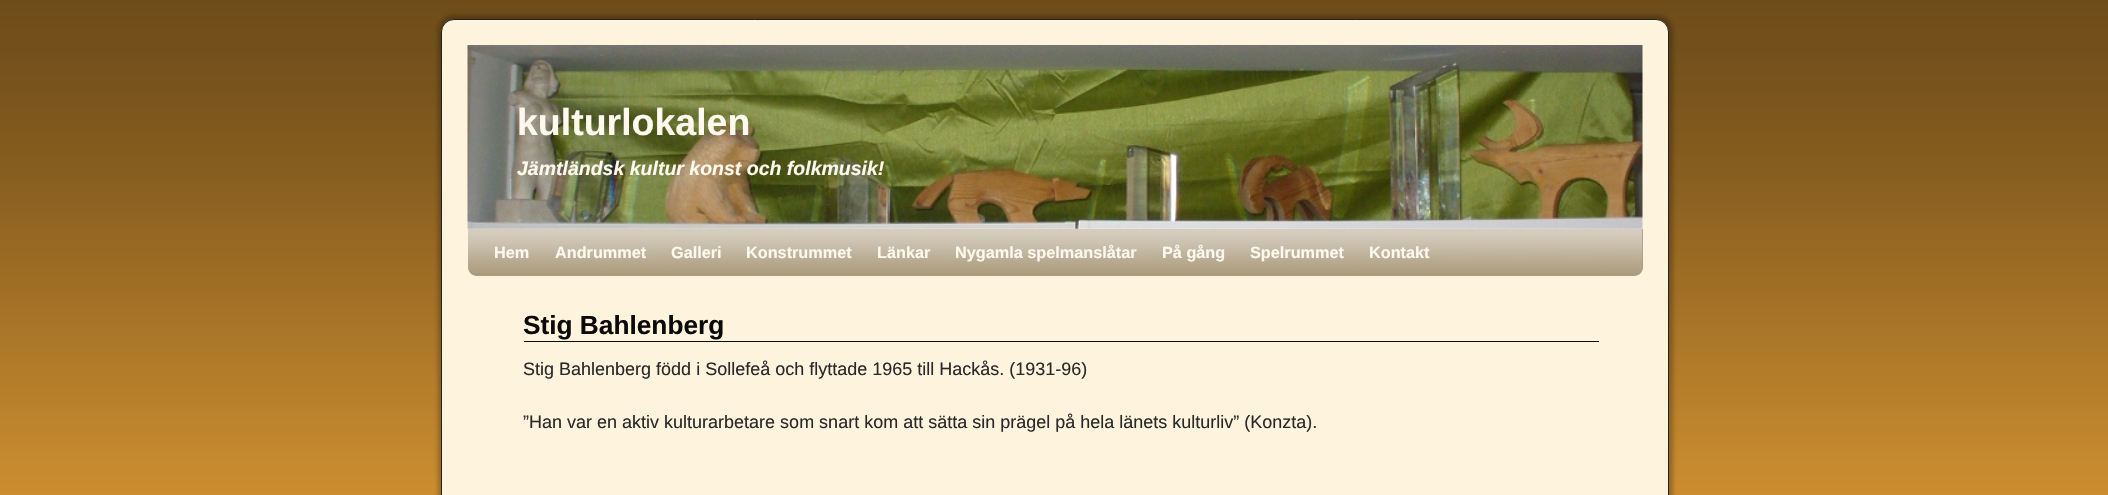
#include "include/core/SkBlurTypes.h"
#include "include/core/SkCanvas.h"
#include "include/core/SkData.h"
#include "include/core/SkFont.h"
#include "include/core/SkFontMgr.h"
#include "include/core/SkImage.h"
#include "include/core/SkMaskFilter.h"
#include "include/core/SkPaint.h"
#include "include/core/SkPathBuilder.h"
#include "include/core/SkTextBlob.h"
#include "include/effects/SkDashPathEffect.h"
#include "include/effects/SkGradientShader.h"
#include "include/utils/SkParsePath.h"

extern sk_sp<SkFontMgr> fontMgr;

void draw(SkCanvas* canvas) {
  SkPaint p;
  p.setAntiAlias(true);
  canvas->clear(SkColorSetRGB(221, 153, 51));
  canvas->drawImageRect(SkImages::DeferredFromEncodedData(SkData::MakeFromFileName("images/1.png")), SkRect::MakeLTRB(0, 0, 2108, 495), SkSamplingOptions());
  p.setColor(SkColorSetARGB(64, 0, 0, 0));
  p.setMaskFilter(SkMaskFilter::MakeBlur(kNormal_SkBlurStyle, 2));
  canvas->drawRoundRect(SkRect::MakeLTRB(438, 15, 1673, 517), 16, 16, p);
  p.setMaskFilter(nullptr);
  p.setColor(SkColorSetRGB(254, 243, 221));
  canvas->drawRoundRect(SkRect::MakeLTRB(441.5f, 19.5f, 1668.5f, 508.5f), 12.5f, 12.5f, p);
  p.setStyle(SkPaint::kStroke_Style);
  p.setStrokeWidth(1);
  p.setColor(SkColorSetRGB(34, 34, 34));
  canvas->drawRoundRect(SkRect::MakeLTRB(441.5f, 19.5f, 1668.5f, 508.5f), 12.5f, 12.5f, p);
  canvas->drawImageRect(SkImages::DeferredFromEncodedData(SkData::MakeFromFileName("images/2.png")), SkRect::MakeLTRB(467, 45, 1643, 229), SkSamplingOptions());
  p.setStyle(SkPaint::kFill_Style);
  p.setColor(SkColorSetRGB(171, 155, 125));
  canvas->drawPath(SkPathBuilder().moveTo(468, 229).lineTo(1643, 229).lineTo(1643, 267).cubicTo(1643, 272, 1639, 276, 1634, 276).lineTo(477, 276).cubicTo(472, 276, 468, 272, 468, 267).close().detach(), p);
  canvas->drawImageRect(SkImages::DeferredFromEncodedData(SkData::MakeFromFileName("images/3.png")), SkRect::MakeLTRB(467, 229, 1643, 273), SkSamplingOptions());
  p.setColor(SkColorSetRGB(10, 10, 10));
  canvas->drawRect(SkRect::MakeLTRB(524, 341, 1599, 342), p);
  SkFont font1(fontMgr->matchFamilyStyle("Liberation Sans", SkFontStyle::Bold()), 37.5f);
  font1.setSubpixel(true);
  p.setColor(SkColorSetRGB(254, 249, 238));
  canvas->drawString("kulturlokalen", 517, 135, font1, p);
  SkFont font2(fontMgr->matchFamilyStyle("Liberation Sans", SkFontStyle::BoldItalic()), 19.5f);
  font2.setSubpixel(true);
  canvas->drawString("Jämtländsk kultur konst och folkmusik!", 517, 175, font2, p);
  SkFont font3(fontMgr->matchFamilyStyle("Liberation Sans", SkFontStyle::Bold()), 16.25f);
  font3.setSubpixel(true);
  canvas->drawString("Hem", 494, 258, font3, p);
  canvas->drawString("Andrummet", 555, 258, font3, p);
  canvas->drawString("Galleri", 671, 258, font3, p);
  canvas->drawString("Konstrummet", 746, 258, font3, p);
  canvas->drawString("Länkar", 877, 258, font3, p);
  canvas->drawString("Nygamla spelmanslåtar", 955, 258, font3, p);
  canvas->drawString("På gång", 1162, 258, font3, p);
  canvas->drawString("Spelrummet", 1250, 258, font3, p);
  canvas->drawString("Kontakt", 1369, 258, font3, p);
  SkFont font4(fontMgr->matchFamilyStyle("Liberation Sans", SkFontStyle::Bold()), 26.25f);
  font4.setSubpixel(true);
  p.setColor(SkColorSetRGB(10, 10, 10));
  canvas->drawString("Stig Bahlenberg", 523, 334, font4, p);
  SkFont font5(fontMgr->matchFamilyStyle("Liberation Sans", SkFontStyle::Normal()), 18);
  font5.setSubpixel(true);
  p.setColor(SkColorSetRGB(41, 41, 41));
  canvas->drawString("Stig Bahlenberg född i Sollefeå och flyttade 1965 till Hackås. (1931-96)", 523, 375, font5, p);
  canvas->drawString("”Han var en aktiv kulturarbetare som snart kom att sätta sin prägel på hela länets kulturliv” (Konzta).", 523, 428, font5, p);
}
